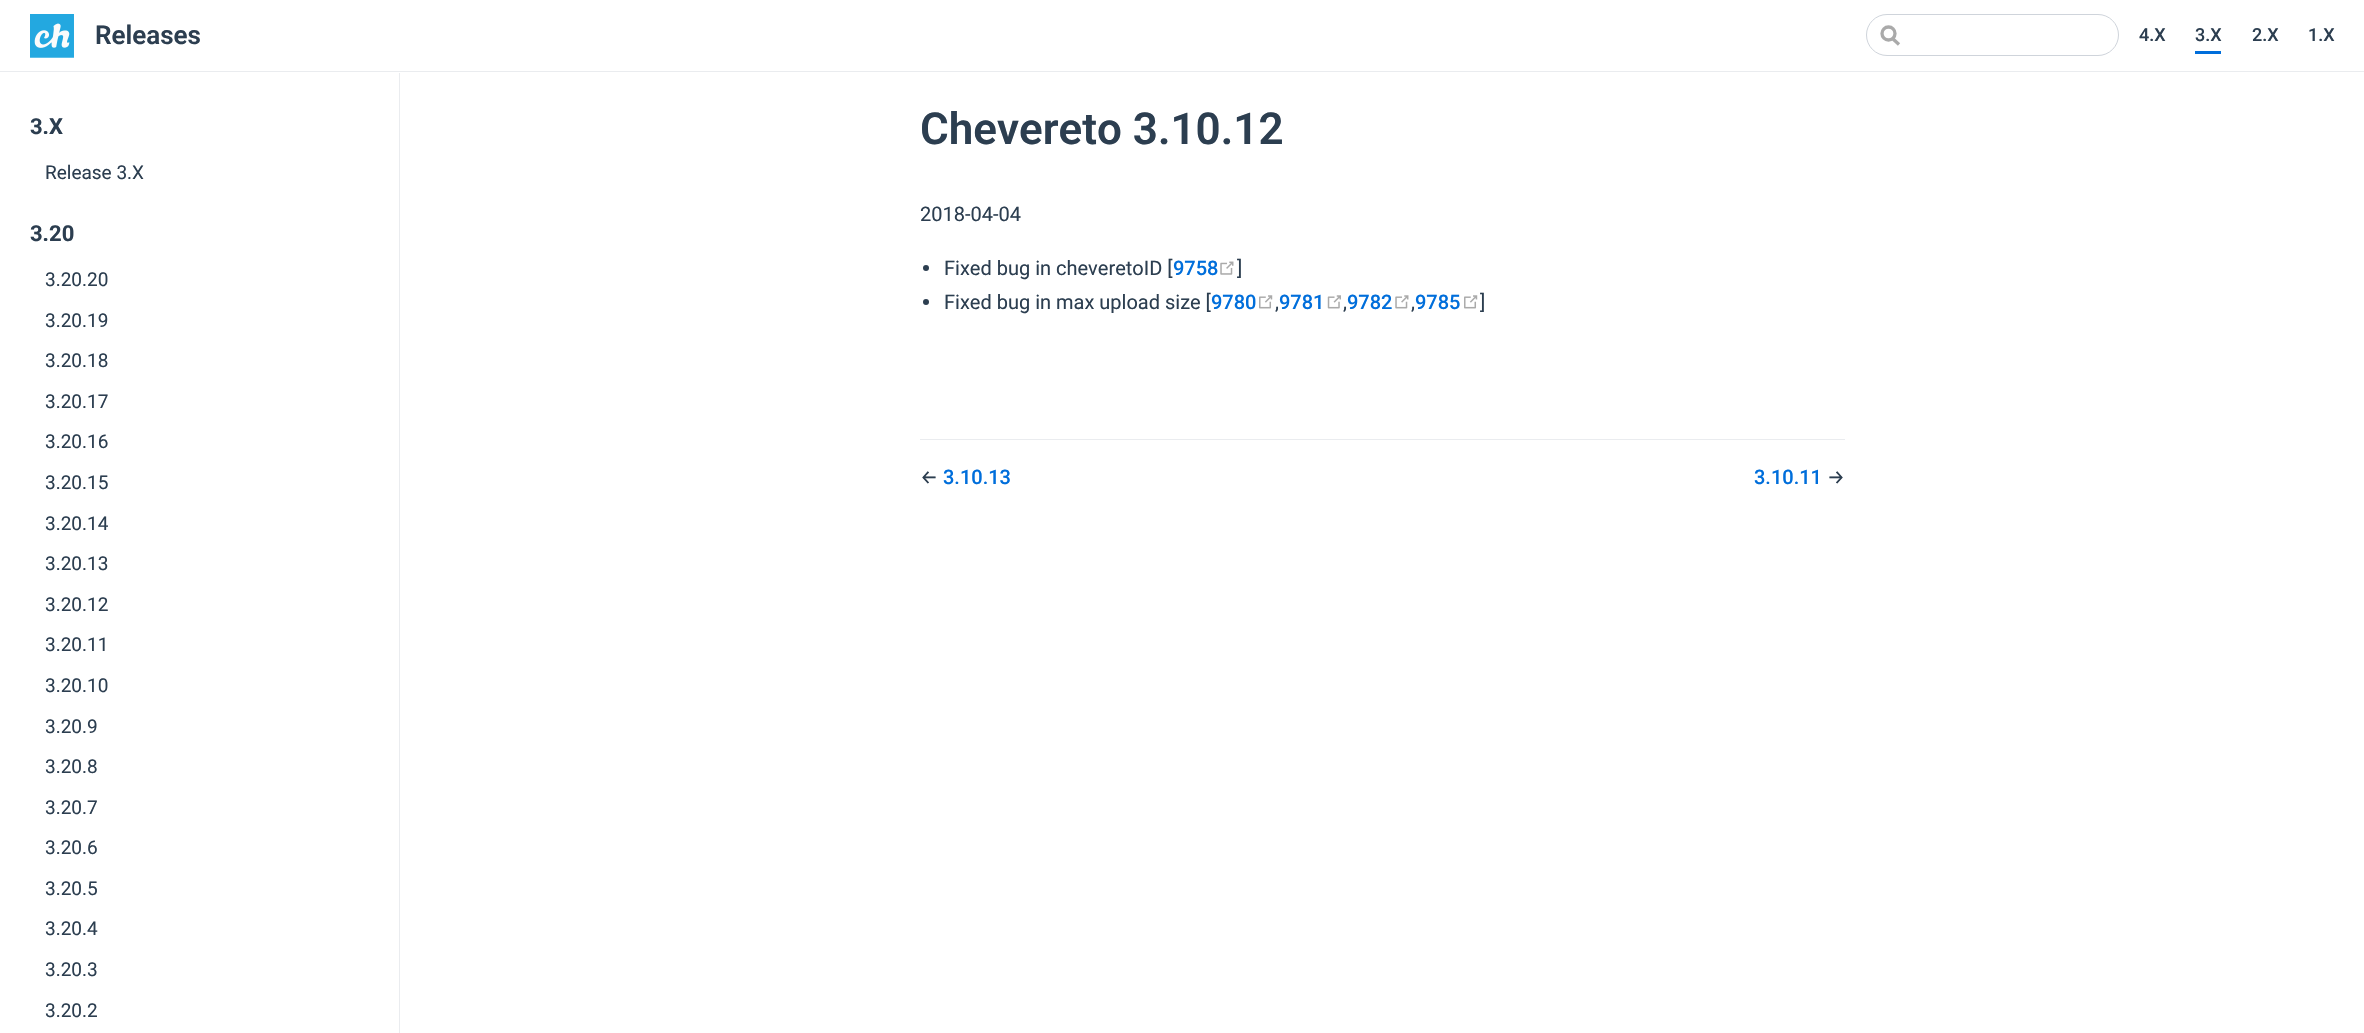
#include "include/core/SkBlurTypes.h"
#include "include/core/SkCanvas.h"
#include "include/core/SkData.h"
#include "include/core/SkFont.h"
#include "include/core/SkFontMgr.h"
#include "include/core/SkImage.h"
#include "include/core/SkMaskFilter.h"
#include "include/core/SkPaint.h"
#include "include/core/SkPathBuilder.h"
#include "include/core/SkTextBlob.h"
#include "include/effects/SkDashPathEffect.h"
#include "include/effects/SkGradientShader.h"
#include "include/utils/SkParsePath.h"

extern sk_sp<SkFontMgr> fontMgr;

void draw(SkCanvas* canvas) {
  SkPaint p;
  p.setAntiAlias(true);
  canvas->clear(SK_ColorWHITE);
  p.setColor(SkColorSetRGB(234, 236, 239));
  canvas->drawRect(SkRect::MakeLTRB(0, 71, 2364, 72), p);
  canvas->drawImageRect(SkImages::DeferredFromEncodedData(SkData::MakeFromFileName("images/1.png")), SkRect::MakeLTRB(30, 14, 74, 58), SkSamplingOptions());
  p.setStyle(SkPaint::kStroke_Style);
  p.setStrokeWidth(3.3f);
  p.setColor(SkColorSetRGB(170, 170, 170));
  canvas->drawPath(SkPathBuilder().moveTo(1899, 44.5f).lineTo(1892, 38).detach(), p);
  canvas->drawCircle(1888.5f, 33.5f, 6.5f, p);
  p.setStrokeWidth(1);
  p.setColor(SkColorSetRGB(207, 212, 219));
  canvas->drawRoundRect(SkRect::MakeLTRB(1866.5f, 14.5f, 2118.5f, 55.5f), 20.5f, 20.5f, p);
  p.setStyle(SkPaint::kFill_Style);
  p.setColor(SkColorSetRGB(0, 110, 219));
  canvas->drawRect(SkRect::MakeLTRB(2195, 51, 2221, 54), p);
  p.setColor(SkColorSetRGB(234, 236, 239));
  canvas->drawRect(SkRect::MakeLTRB(399, 73, 400, 1033), p);
  p.setColor(SkColorSetRGB(44, 62, 80));
  canvas->drawCircle(926, 268, 3, p);
  canvas->drawImageRect(SkImages::DeferredFromEncodedData(SkData::MakeFromFileName("images/2.png")), SkRect::MakeLTRB(1220, 261, 1234, 275), SkSamplingOptions());
  canvas->drawCircle(926, 302, 3, p);
  canvas->drawImageRect(SkImages::DeferredFromEncodedData(SkData::MakeFromFileName("images/3.png")), SkRect::MakeLTRB(1259, 295, 1273, 309), SkSamplingOptions());
  canvas->drawImageRect(SkImages::DeferredFromEncodedData(SkData::MakeFromFileName("images/4.png")), SkRect::MakeLTRB(1327, 295, 1341, 309), SkSamplingOptions());
  canvas->drawImageRect(SkImages::DeferredFromEncodedData(SkData::MakeFromFileName("images/5.png")), SkRect::MakeLTRB(1395, 295, 1409, 309), SkSamplingOptions());
  canvas->drawImageRect(SkImages::DeferredFromEncodedData(SkData::MakeFromFileName("images/3.png")), SkRect::MakeLTRB(1464, 295, 1478, 309), SkSamplingOptions());
  p.setColor(SkColorSetRGB(234, 236, 239));
  canvas->drawRect(SkRect::MakeLTRB(920, 439, 1845, 440), p);
  SkFont font1(fontMgr->matchFamilyStyle("Roboto", SkFontStyle(600, SkFontStyle::kNormal_Width, SkFontStyle::kUpright_Slant)), 26);
  font1.setSubpixel(true);
  p.setColor(SkColorSetRGB(44, 62, 80));
  canvas->drawString("Releases", 95, 44, font1, p);
  SkFont font2(fontMgr->matchFamilyStyle("Roboto", SkFontStyle(500, SkFontStyle::kNormal_Width, SkFontStyle::kUpright_Slant)), 18);
  font2.setSubpixel(true);
  canvas->drawString("4.X", 2139, 41, font2, p);
  canvas->drawString("3.X", 2195, 41, font2, p);
  canvas->drawString("2.X", 2252, 41, font2, p);
  canvas->drawString("1.X", 2308, 41, font2, p);
  SkFont font3(fontMgr->matchFamilyStyle("Roboto", SkFontStyle::Bold()), 22);
  font3.setSubpixel(true);
  canvas->drawString("3.X", 30, 134, font3, p);
  SkFont font4(fontMgr->matchFamilyStyle("Roboto", SkFontStyle::Normal()), 19);
  font4.setSubpixel(true);
  canvas->drawString("Release 3.X", 45, 179, font4, p);
  canvas->drawString("3.20", 30, 241, font3, p);
  canvas->drawString("3.20.20", 45, 286, font4, p);
  canvas->drawString("3.20.19", 45, 327, font4, p);
  canvas->drawString("3.20.18", 45, 367, font4, p);
  canvas->drawString("3.20.17", 45, 408, font4, p);
  canvas->drawString("3.20.16", 45, 448, font4, p);
  canvas->drawString("3.20.15", 45, 489, font4, p);
  canvas->drawString("3.20.14", 45, 530, font4, p);
  canvas->drawString("3.20.13", 45, 570, font4, p);
  canvas->drawString("3.20.12", 45, 611, font4, p);
  canvas->drawString("3.20.11", 45, 651, font4, p);
  canvas->drawString("3.20.10", 45, 692, font4, p);
  canvas->drawString("3.20.9", 45, 733, font4, p);
  canvas->drawString("3.20.8", 45, 773, font4, p);
  canvas->drawString("3.20.7", 45, 814, font4, p);
  canvas->drawString("3.20.6", 45, 854, font4, p);
  canvas->drawString("3.20.5", 45, 895, font4, p);
  canvas->drawString("3.20.4", 45, 935, font4, p);
  canvas->drawString("3.20.3", 45, 976, font4, p);
  canvas->drawString("3.20.2", 45, 1017, font4, p);
  SkFont font5(fontMgr->matchFamilyStyle("Roboto", SkFontStyle(600, SkFontStyle::kNormal_Width, SkFontStyle::kUpright_Slant)), 44);
  font5.setSubpixel(true);
  canvas->drawString("Chevereto 3.10.12", 920, 144, font5, p);
  SkFont font6(fontMgr->matchFamilyStyle("Roboto", SkFontStyle::Normal()), 20);
  font6.setSubpixel(true);
  canvas->drawString("2018-04-04", 920, 221, font6, p);
  canvas->drawString("Fixed bug in cheveretoID [", 944, 275, font6, p);
  SkFont font7(fontMgr->matchFamilyStyle("Roboto", SkFontStyle(500, SkFontStyle::kNormal_Width, SkFontStyle::kUpright_Slant)), 20);
  font7.setSubpixel(true);
  p.setColor(SkColorSetRGB(0, 110, 219));
  canvas->drawString("9758", 1173, 275, font7, p);
  p.setColor(SkColorSetRGB(44, 62, 80));
  canvas->drawString("]", 1237, 275, font6, p);
  canvas->drawString("Fixed bug in max upload size [", 944, 309, font6, p);
  p.setColor(SkColorSetRGB(0, 110, 219));
  canvas->drawString("9780", 1211, 309, font7, p);
  canvas->drawString("9781", 1279, 309, font7, p);
  canvas->drawString("9782", 1347, 309, font7, p);
  canvas->drawString("9785", 1415, 309, font7, p);
  p.setColor(SkColorSetRGB(44, 62, 80));
  canvas->drawString("]", 1480, 309, font6, p);
  canvas->drawString(",", 1275, 309, font6, p);
  canvas->drawString(",", 1343, 309, font6, p);
  canvas->drawString(",", 1411, 309, font6, p);
  SkFont font8(fontMgr->matchFamilyStyle("Fira Sans", SkFontStyle::Normal()), 20);
  font8.setSubpixel(true);
  canvas->drawString("←", 920, 484, font8, p);
  p.setColor(SkColorSetRGB(0, 110, 219));
  canvas->drawString("3.10.13", 943, 484, font7, p);
  canvas->drawString("3.10.11", 1754, 484, font7, p);
  p.setColor(SkColorSetRGB(44, 62, 80));
  canvas->drawString("→", 1827, 484, font8, p);
}
